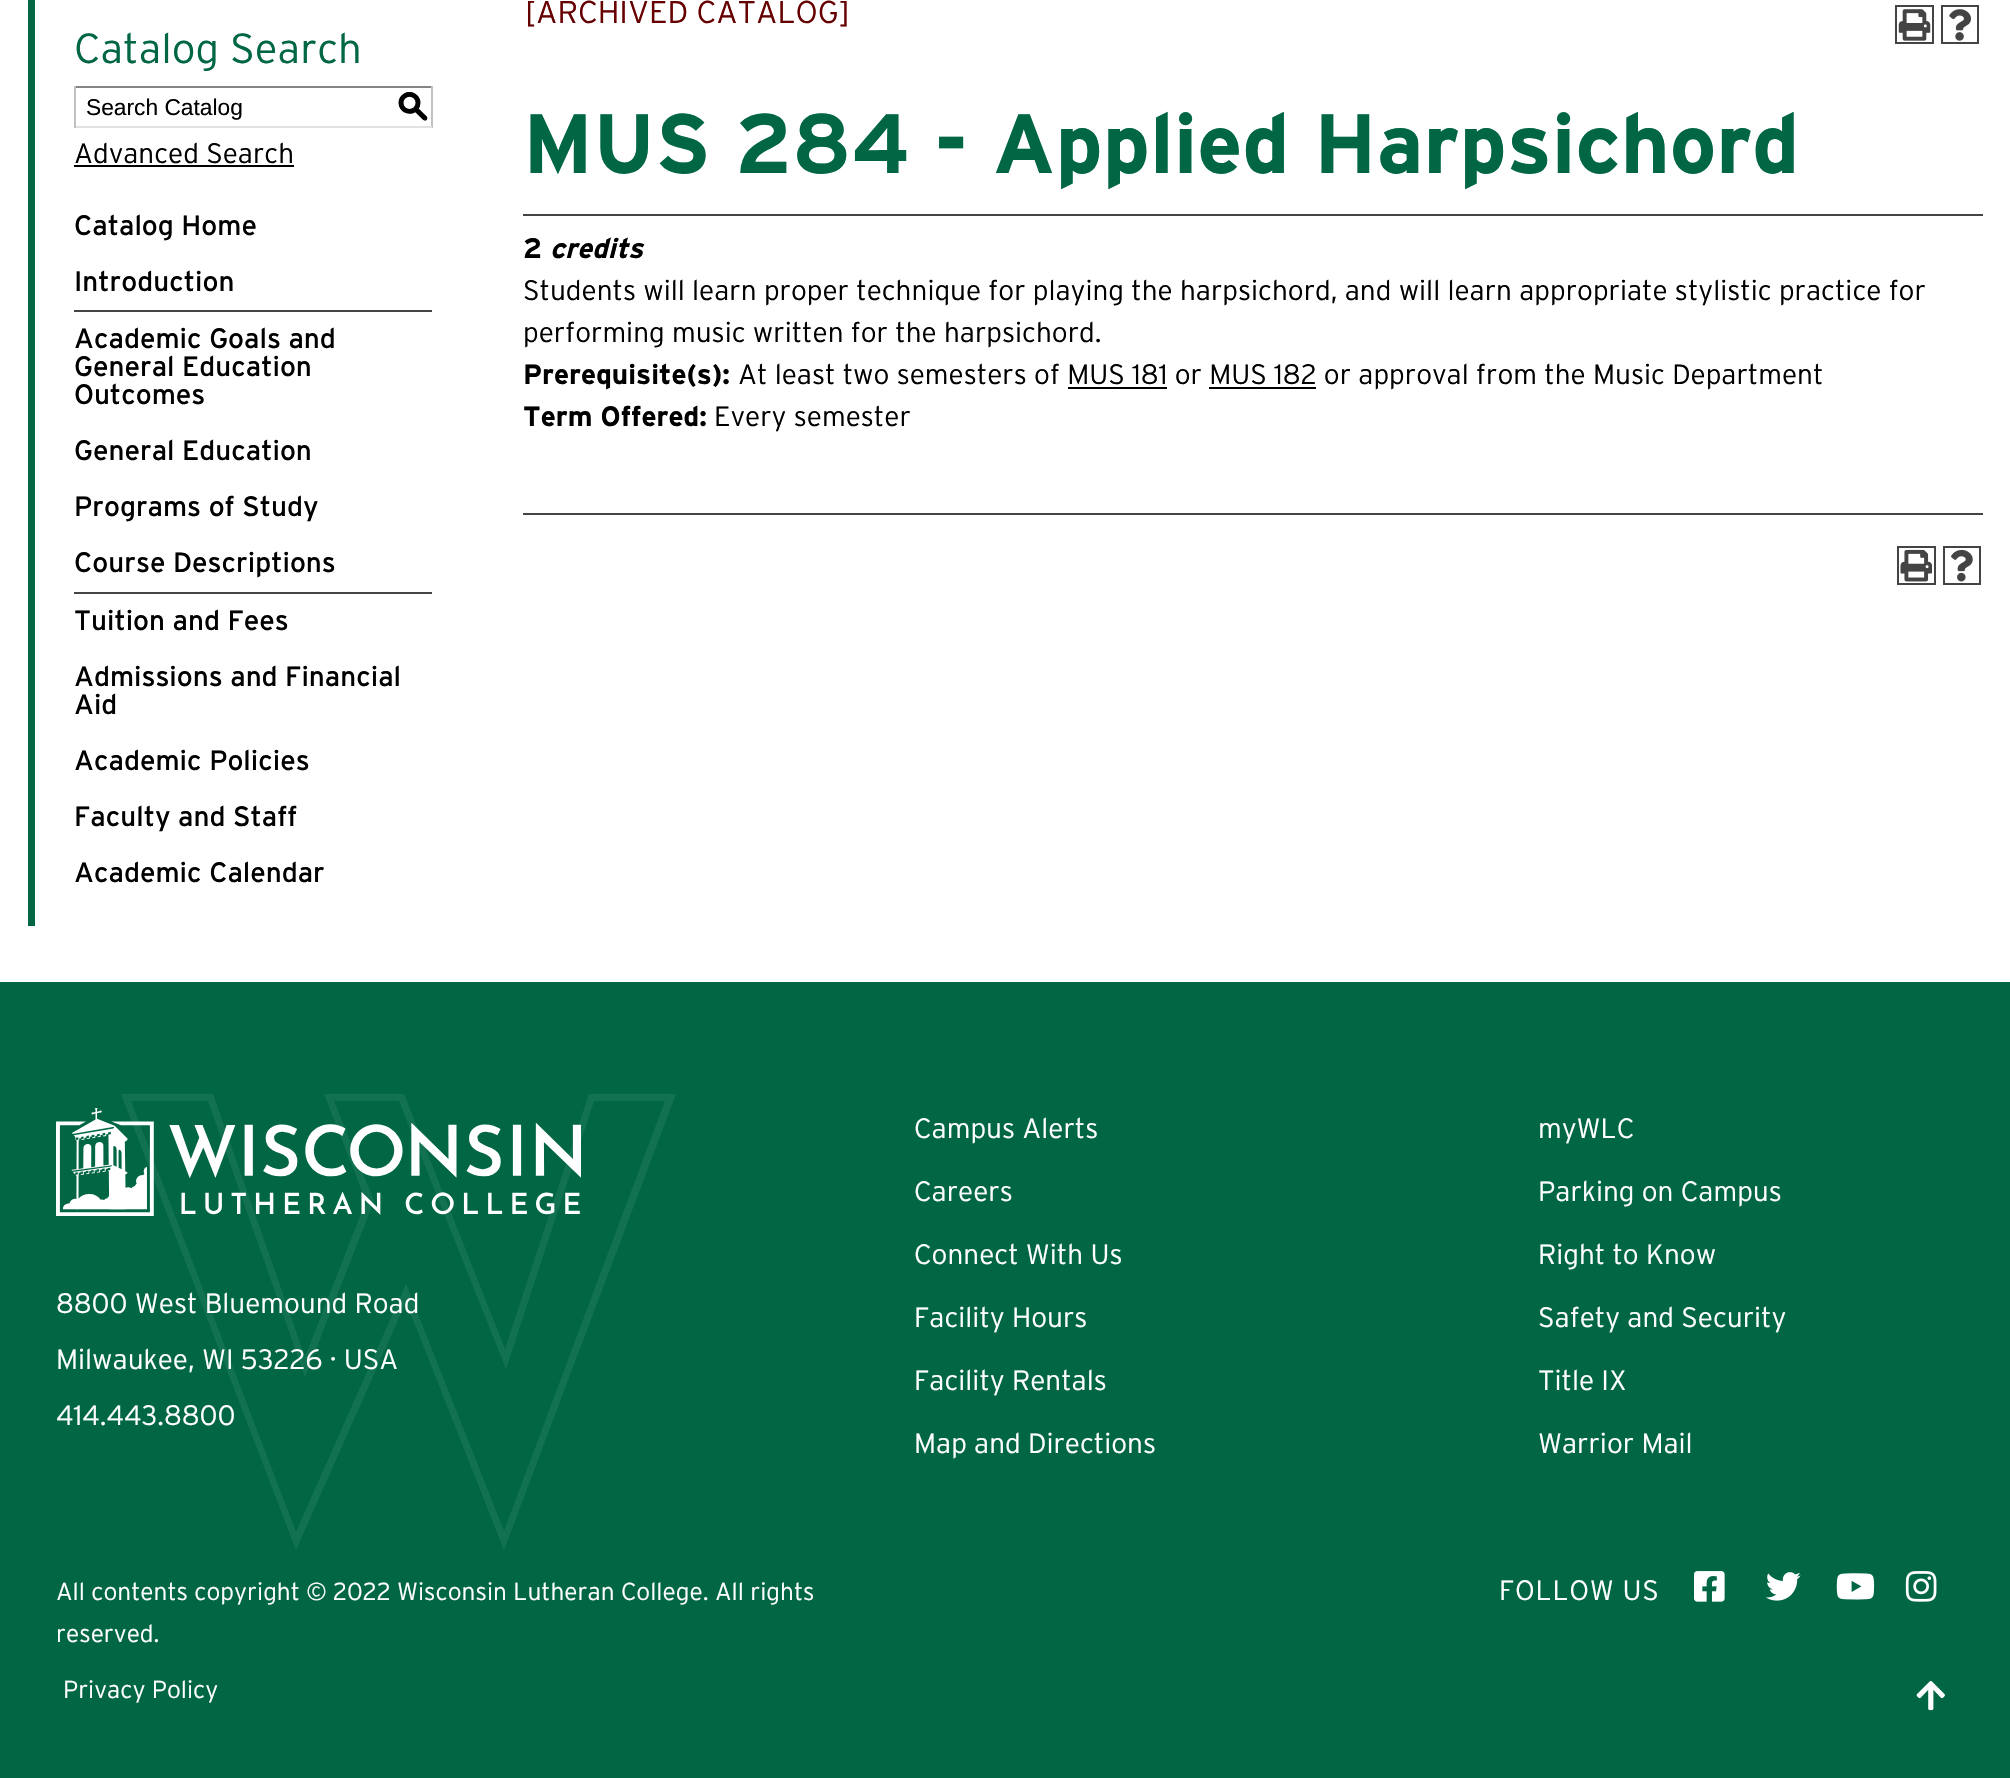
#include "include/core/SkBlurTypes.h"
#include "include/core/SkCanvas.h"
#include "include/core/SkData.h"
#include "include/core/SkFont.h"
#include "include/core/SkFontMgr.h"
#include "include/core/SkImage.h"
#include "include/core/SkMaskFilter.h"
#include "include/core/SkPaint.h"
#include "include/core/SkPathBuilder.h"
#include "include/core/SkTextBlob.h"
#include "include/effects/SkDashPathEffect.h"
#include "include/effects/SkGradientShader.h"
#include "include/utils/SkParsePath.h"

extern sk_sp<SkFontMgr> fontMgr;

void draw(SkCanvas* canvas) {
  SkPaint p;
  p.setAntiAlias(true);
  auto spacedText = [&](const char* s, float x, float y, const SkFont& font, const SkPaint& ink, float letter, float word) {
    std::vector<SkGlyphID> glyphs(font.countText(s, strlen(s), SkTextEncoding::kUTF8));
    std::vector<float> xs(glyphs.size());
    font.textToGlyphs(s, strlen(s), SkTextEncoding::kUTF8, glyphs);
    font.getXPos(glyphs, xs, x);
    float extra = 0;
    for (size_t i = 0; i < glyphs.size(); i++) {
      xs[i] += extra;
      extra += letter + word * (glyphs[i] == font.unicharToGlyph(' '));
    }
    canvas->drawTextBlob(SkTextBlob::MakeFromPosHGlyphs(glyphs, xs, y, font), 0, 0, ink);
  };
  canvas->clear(SK_ColorWHITE);
  p.setColor(SkColorSetRGB(0, 102, 67));
  canvas->drawRect(SkRect::MakeLTRB(28, 0, 35, 926), p);
  p.setColor(SkColorSetRGB(132, 132, 132));
  canvas->drawRect(SkRect::MakeLTRB(74, 86, 432, 88), p);
  p.setColor(SkColorSetRGB(193, 193, 193));
  canvas->drawRect(SkRect::MakeLTRB(431, 86, 433, 128), p);
  p.setColor(SkColorSetRGB(225, 225, 225));
  canvas->drawRect(SkRect::MakeLTRB(74, 126, 432, 128), p);
  p.setColor(SkColorSetRGB(193, 193, 193));
  canvas->drawRect(SkRect::MakeLTRB(74, 86, 76, 128), p);
  p.setColor(SK_ColorBLACK);
  canvas->drawRect(SkRect::MakeLTRB(74, 165, 294, 167), p);
  p.setColor(SkColorSetRGB(68, 68, 68));
  canvas->drawRect(SkRect::MakeLTRB(74, 310, 432, 312), p);
  canvas->drawRect(SkRect::MakeLTRB(74, 592, 432, 594), p);
  p.setStyle(SkPaint::kStroke_Style);
  p.setStrokeWidth(2);
  canvas->drawRect(SkRect::MakeLTRB(1896, 6, 1933, 43), p);
  canvas->drawImageRect(SkImages::DeferredFromEncodedData(SkData::MakeFromFileName("images/1.png")), SkRect::MakeLTRB(1898, 9, 1931, 41), SkSamplingOptions());
  canvas->drawRect(SkRect::MakeLTRB(1942, 6, 1978, 43), p);
  canvas->drawImageRect(SkImages::DeferredFromEncodedData(SkData::MakeFromFileName("images/2.png")), SkRect::MakeLTRB(1949, 9, 1971, 41), SkSamplingOptions());
  p.setStyle(SkPaint::kFill_Style);
  canvas->drawRect(SkRect::MakeLTRB(523, 214, 1983, 216), p);
  p.setColor(SK_ColorBLACK);
  canvas->drawRect(SkRect::MakeLTRB(1068, 387, 1167, 389), p);
  canvas->drawRect(SkRect::MakeLTRB(1209, 387, 1316, 389), p);
  p.setColor(SkColorSetRGB(68, 68, 68));
  canvas->drawRect(SkRect::MakeLTRB(523, 513, 1983, 515), p);
  p.setStyle(SkPaint::kStroke_Style);
  canvas->drawRect(SkRect::MakeLTRB(1898, 547, 1935, 584), p);
  canvas->drawImageRect(SkImages::DeferredFromEncodedData(SkData::MakeFromFileName("images/3.png")), SkRect::MakeLTRB(1900, 549, 1932, 582), SkSamplingOptions());
  canvas->drawRect(SkRect::MakeLTRB(1944, 547, 1980, 584), p);
  canvas->drawImageRect(SkImages::DeferredFromEncodedData(SkData::MakeFromFileName("images/4.png")), SkRect::MakeLTRB(1951, 549, 1973, 582), SkSamplingOptions());
  p.setStyle(SkPaint::kFill_Style);
  p.setColor(SkColorSetRGB(0, 102, 67));
  canvas->drawRect(SkRect::MakeLTRB(0, 982, 2010, 1778), p);
  p.setColor(SkColorSetRGB(18, 113, 80));
  canvas->drawPath(SkPathBuilder().moveTo(296, 1532).lineTo(406, 1284).lineTo(504, 1531).lineTo(665, 1101).lineTo(594, 1101).lineTo(506, 1369).lineTo(399, 1101).lineTo(334, 1101).lineTo(374, 1201).lineTo(305, 1377).lineTo(208, 1101).lineTo(131, 1101).lineTo(296, 1532).moveTo(296, 1550).lineTo(121, 1094).lineTo(213, 1094).lineTo(305, 1357).lineTo(366, 1201).lineTo(324, 1094).lineTo(404, 1094).lineTo(505, 1349).lineTo(589, 1094).lineTo(676, 1094).lineTo(504, 1550).lineTo(406, 1302).close().detach(), p);
  canvas->drawImageRect(SkImages::DeferredFromEncodedData(SkData::MakeFromFileName("images/5.png")), SkRect::MakeLTRB(56, 1108, 581, 1216), SkSamplingOptions());
  canvas->drawImageRect(SkImages::DeferredFromEncodedData(SkData::MakeFromFileName("images/6.png")), SkRect::MakeLTRB(1694, 1571, 1725, 1602), SkSamplingOptions());
  canvas->drawImageRect(SkImages::DeferredFromEncodedData(SkData::MakeFromFileName("images/7.png")), SkRect::MakeLTRB(1766, 1572, 1801, 1601), SkSamplingOptions());
  canvas->drawImageRect(SkImages::DeferredFromEncodedData(SkData::MakeFromFileName("images/8.png")), SkRect::MakeLTRB(1836, 1573, 1875, 1600), SkSamplingOptions());
  canvas->drawImageRect(SkImages::DeferredFromEncodedData(SkData::MakeFromFileName("images/9.png")), SkRect::MakeLTRB(1905, 1571, 1937, 1602), SkSamplingOptions());
  canvas->drawImageRect(SkImages::DeferredFromEncodedData(SkData::MakeFromFileName("images/10.png")), SkRect::MakeLTRB(1916, 1681, 1945, 1711), SkSamplingOptions());
  SkFont font1(fontMgr->matchFamilyStyle("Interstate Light", SkFontStyle(300, SkFontStyle::kNormal_Width, SkFontStyle::kUpright_Slant)), 42);
  font1.setSubpixel(true);
  p.setColor(SkColorSetRGB(0, 102, 67));
  canvas->drawString("Catalog Search", 74, 63, font1, p);
  SkFont font2(fontMgr->matchFamilyStyle("Liberation Sans", SkFontStyle::Normal()), 22.75f);
  font2.setSubpixel(true);
  p.setColor(SK_ColorBLACK);
  canvas->drawString("Search Catalog", 86, 115, font2, p);
  SkFont font3(fontMgr->matchFamilyStyle("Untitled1", SkFontStyle(500, SkFontStyle::kNormal_Width, SkFontStyle::kUpright_Slant)), 31.5f);
  font3.setSubpixel(true);
  canvas->drawString("S", 397, 116, font3, p);
  SkFont font4(fontMgr->matchFamilyStyle("Interstate Light", SkFontStyle(300, SkFontStyle::kNormal_Width, SkFontStyle::kUpright_Slant)), 28);
  font4.setSubpixel(true);
  canvas->drawString("Advanced Search", 74, 163, font4, p);
  SkFont font5(fontMgr->matchFamilyStyle("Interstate", SkFontStyle::Normal()), 28);
  font5.setSubpixel(true);
  canvas->drawString("Catalog Home", 74, 235, font5, p);
  canvas->drawString("Introduction", 74, 291, font5, p);
  canvas->drawString("Academic Goals and", 74, 348, font5, p);
  canvas->drawString("General Education", 74, 376, font5, p);
  canvas->drawString("Outcomes", 74, 404, font5, p);
  canvas->drawString("General Education", 74, 460, font5, p);
  canvas->drawString("Programs of Study", 74, 516, font5, p);
  canvas->drawString("Course Descriptions", 74, 572, font5, p);
  canvas->drawString("Tuition and Fees", 74, 630, font5, p);
  canvas->drawString("Admissions and Financial", 74, 686, font5, p);
  canvas->drawString("Aid", 74, 714, font5, p);
  canvas->drawString("Academic Policies", 74, 770, font5, p);
  canvas->drawString("Faculty and Staff", 74, 826, font5, p);
  canvas->drawString("Academic Calendar", 74, 882, font5, p);
  SkFont font6(fontMgr->matchFamilyStyle("Interstate Light", SkFontStyle(300, SkFontStyle::kNormal_Width, SkFontStyle::kUpright_Slant)), 31.5f);
  font6.setSubpixel(true);
  p.setColor(SkColorSetRGB(102, 0, 0));
  canvas->drawString("[ARCHIVED CATALOG]", 525, 23, font6, p);
  SkFont font7(fontMgr->matchFamilyStyle("Interstate", SkFontStyle::Bold()), 84);
  font7.setSubpixel(true);
  p.setColor(SkColorSetRGB(0, 102, 67));
  canvas->drawString("MUS 284 - Applied Harpsichord", 523, 173, font7, p);
  SkFont font8(fontMgr->matchFamilyStyle("Interstate", SkFontStyle::Bold()), 28);
  font8.setSubpixel(true);
  p.setColor(SK_ColorBLACK);
  canvas->drawString("2", 523, 258, font8, p);
  SkFont font9(fontMgr->matchFamilyStyle("Interstate", SkFontStyle::BoldItalic()), 28);
  font9.setSubpixel(true);
  canvas->drawString("credits", 550, 258, font9, p);
  canvas->drawString("Students will learn proper technique for playing the harpsichord, and will learn appropriate stylistic practice for", 523, 300, font4, p);
  canvas->drawString("performing music written for the harpsichord.", 523, 342, font4, p);
  canvas->drawString("Prerequisite(s):", 523, 384, font8, p);
  canvas->drawString("At least two semesters of MUS 181 or MUS 182 or approval from the Music Department", 738, 384, font4, p);
  canvas->drawString("Term Offered:", 523, 426, font8, p);
  canvas->drawString("Every semester", 714, 426, font4, p);
  p.setColor(SK_ColorWHITE);
  canvas->drawString("8800 West Bluemound Road", 56, 1313, font4, p);
  canvas->drawString("Milwaukee, WI 53226 · USA", 56, 1369, font4, p);
  canvas->drawString("414.443.8800", 56, 1425, font4, p);
  canvas->drawString("Campus Alerts", 914, 1138, font4, p);
  canvas->drawString("myWLC", 1538, 1138, font4, p);
  canvas->drawString("Careers", 914, 1201, font4, p);
  canvas->drawString("Parking on Campus", 1538, 1201, font4, p);
  canvas->drawString("Connect With Us", 914, 1264, font4, p);
  canvas->drawString("Right to Know", 1538, 1264, font4, p);
  canvas->drawString("Facility Hours", 914, 1327, font4, p);
  canvas->drawString("Safety and Security", 1538, 1327, font4, p);
  canvas->drawString("Facility Rentals", 914, 1390, font4, p);
  canvas->drawString("Title IX", 1538, 1390, font4, p);
  canvas->drawString("Map and Directions", 914, 1453, font4, p);
  canvas->drawString("Warrior Mail", 1538, 1453, font4, p);
  SkFont font10(fontMgr->matchFamilyStyle("Interstate Light", SkFontStyle(300, SkFontStyle::kNormal_Width, SkFontStyle::kUpright_Slant)), 24.5f);
  font10.setSubpixel(true);
  canvas->drawString("All contents copyright © 2022 Wisconsin Lutheran College. All rights", 56, 1600, font10, p);
  canvas->drawString("reserved.", 56, 1642, font10, p);
  canvas->drawString("Privacy Policy", 63, 1698, font10, p);
  spacedText("FOLLOW US", 1499, 1600, font4, p, 0.75f, 0);
}
